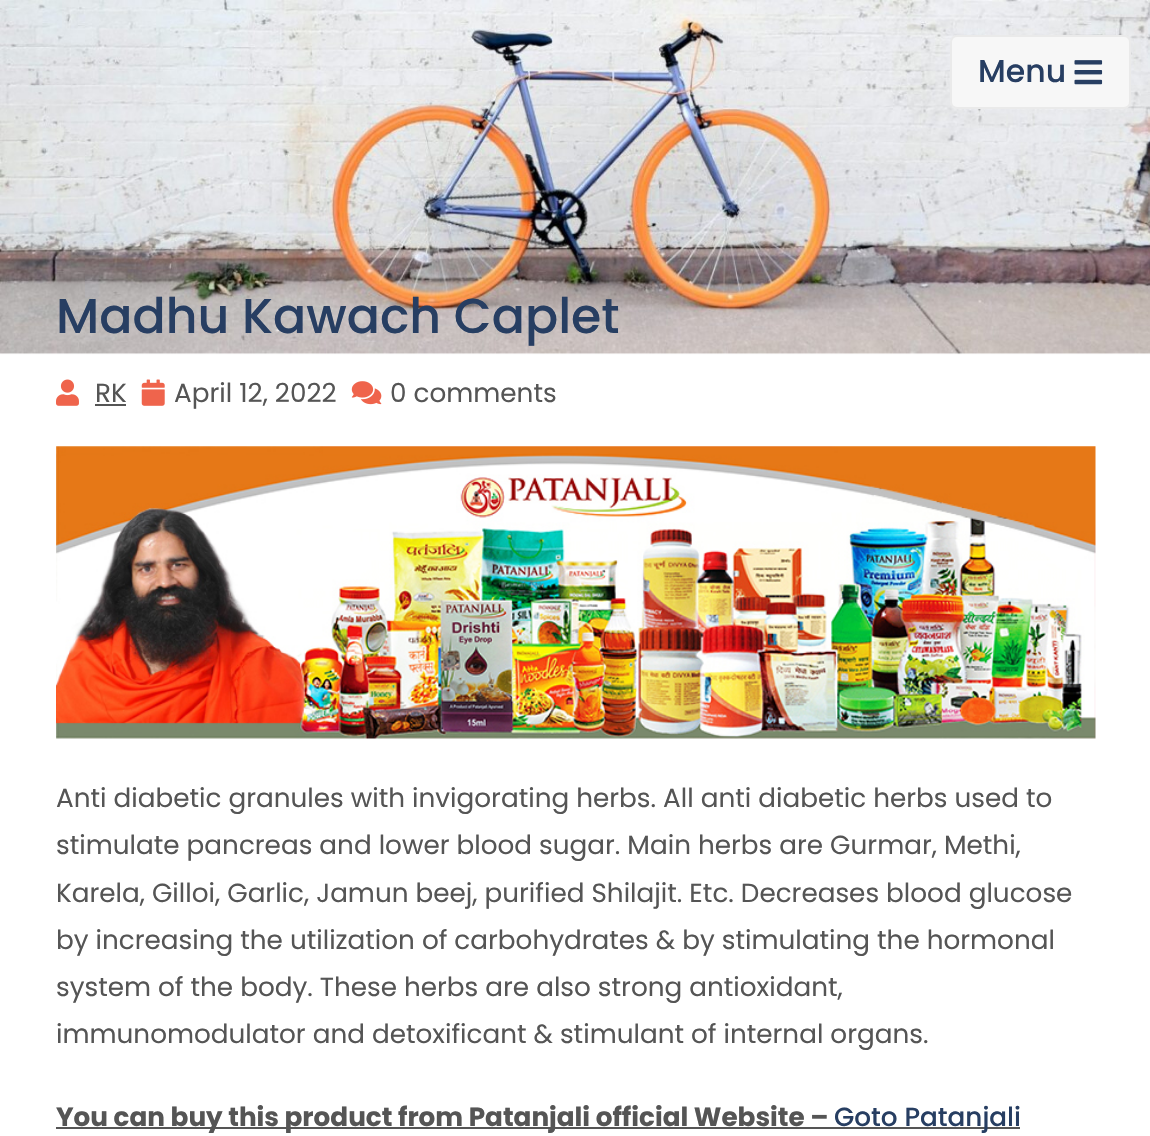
#include "include/core/SkBlurTypes.h"
#include "include/core/SkCanvas.h"
#include "include/core/SkData.h"
#include "include/core/SkFont.h"
#include "include/core/SkFontMgr.h"
#include "include/core/SkImage.h"
#include "include/core/SkMaskFilter.h"
#include "include/core/SkPaint.h"
#include "include/core/SkPathBuilder.h"
#include "include/core/SkTextBlob.h"
#include "include/effects/SkDashPathEffect.h"
#include "include/effects/SkGradientShader.h"
#include "include/utils/SkParsePath.h"

extern sk_sp<SkFontMgr> fontMgr;

void draw(SkCanvas* canvas) {
  SkPaint p;
  p.setAntiAlias(true);
  canvas->clear(SK_ColorWHITE);
  canvas->drawImageRect(SkImages::DeferredFromEncodedData(SkData::MakeFromFileName("images/1.png")), SkRect::MakeLTRB(0, 0, 1150, 355), SkSamplingOptions());
  p.setColor(SkColorSetRGB(247, 247, 247));
  canvas->drawRoundRect(SkRect::MakeLTRB(950, 35, 1131, 109), 7, 7, p);
  p.setStyle(SkPaint::kStroke_Style);
  p.setStrokeWidth(2);
  p.setColor(SkColorSetARGB(54, 187, 187, 187));
  canvas->drawRoundRect(SkRect::MakeLTRB(951, 36, 1130, 108), 6, 6, p);
  canvas->drawImageRect(SkImages::DeferredFromEncodedData(SkData::MakeFromFileName("images/2.png")), SkRect::MakeLTRB(1074, 60, 1103, 85), SkSamplingOptions());
  canvas->drawImageRect(SkImages::DeferredFromEncodedData(SkData::MakeFromFileName("images/3.png")), SkRect::MakeLTRB(56, 379, 79, 406), SkSamplingOptions());
  p.setStyle(SkPaint::kFill_Style);
  p.setColor(SkColorSetRGB(85, 85, 85));
  canvas->drawRect(SkRect::MakeLTRB(95, 404, 126, 406), p);
  canvas->drawImageRect(SkImages::DeferredFromEncodedData(SkData::MakeFromFileName("images/4.png")), SkRect::MakeLTRB(141, 379, 165, 406), SkSamplingOptions());
  canvas->drawImageRect(SkImages::DeferredFromEncodedData(SkData::MakeFromFileName("images/5.png")), SkRect::MakeLTRB(351, 381, 382, 405), SkSamplingOptions());
  canvas->drawImageRect(SkImages::DeferredFromEncodedData(SkData::MakeFromFileName("images/6.png")), SkRect::MakeLTRB(56, 446, 1096, 739), SkSamplingOptions());
  canvas->drawRect(SkRect::MakeLTRB(56, 1127, 1020, 1129), p);
  SkFont font1(fontMgr->matchFamilyStyle("Poppins", SkFontStyle(500, SkFontStyle::kNormal_Width, SkFontStyle::kUpright_Slant)), 31.5f);
  font1.setSubpixel(true);
  p.setColor(SkColorSetRGB(39, 62, 98));
  canvas->drawString("Menu", 978, 82, font1, p);
  SkFont font2(fontMgr->matchFamilyStyle("Poppins", SkFontStyle(500, SkFontStyle::kNormal_Width, SkFontStyle::kUpright_Slant)), 49);
  font2.setSubpixel(true);
  canvas->drawString("Madhu Kawach Caplet", 56, 333, font2, p);
  SkFont font3(fontMgr->matchFamilyStyle("Poppins", SkFontStyle::Normal()), 26.25f);
  font3.setSubpixel(true);
  p.setColor(SkColorSetRGB(85, 85, 85));
  canvas->drawString("RK", 95, 402, font3, p);
  canvas->drawString("April 12, 2022", 174, 402, font3, p);
  canvas->drawString("0 comments", 390, 402, font3, p);
  canvas->drawString("Anti diabetic granules with invigorating herbs. All anti diabetic herbs used to", 56, 807, font3, p);
  canvas->drawString("stimulate pancreas and lower blood sugar. Main herbs are Gurmar, Methi,", 56, 854, font3, p);
  canvas->drawString("Karela, Gilloi, Garlic, Jamun beej, purified Shilajit. Etc. Decreases blood glucose", 56, 902, font3, p);
  canvas->drawString("by increasing the utilization of carbohydrates & by stimulating the hormonal", 56, 949, font3, p);
  canvas->drawString("system of the body. These herbs are also strong antioxidant,", 56, 996, font3, p);
  canvas->drawString("immunomodulator and detoxificant & stimulant of internal organs.", 56, 1043, font3, p);
  SkFont font4(fontMgr->matchFamilyStyle("Poppins", SkFontStyle::Bold()), 26.25f);
  font4.setSubpixel(true);
  canvas->drawString("You can buy this product from Patanjali official Website –", 56, 1126, font4, p);
  SkFont font5(fontMgr->matchFamilyStyle("Poppins", SkFontStyle(500, SkFontStyle::kNormal_Width, SkFontStyle::kUpright_Slant)), 26.25f);
  font5.setSubpixel(true);
  p.setColor(SkColorSetRGB(39, 62, 98));
  canvas->drawString("Goto Patanjali", 834, 1126, font5, p);
}
